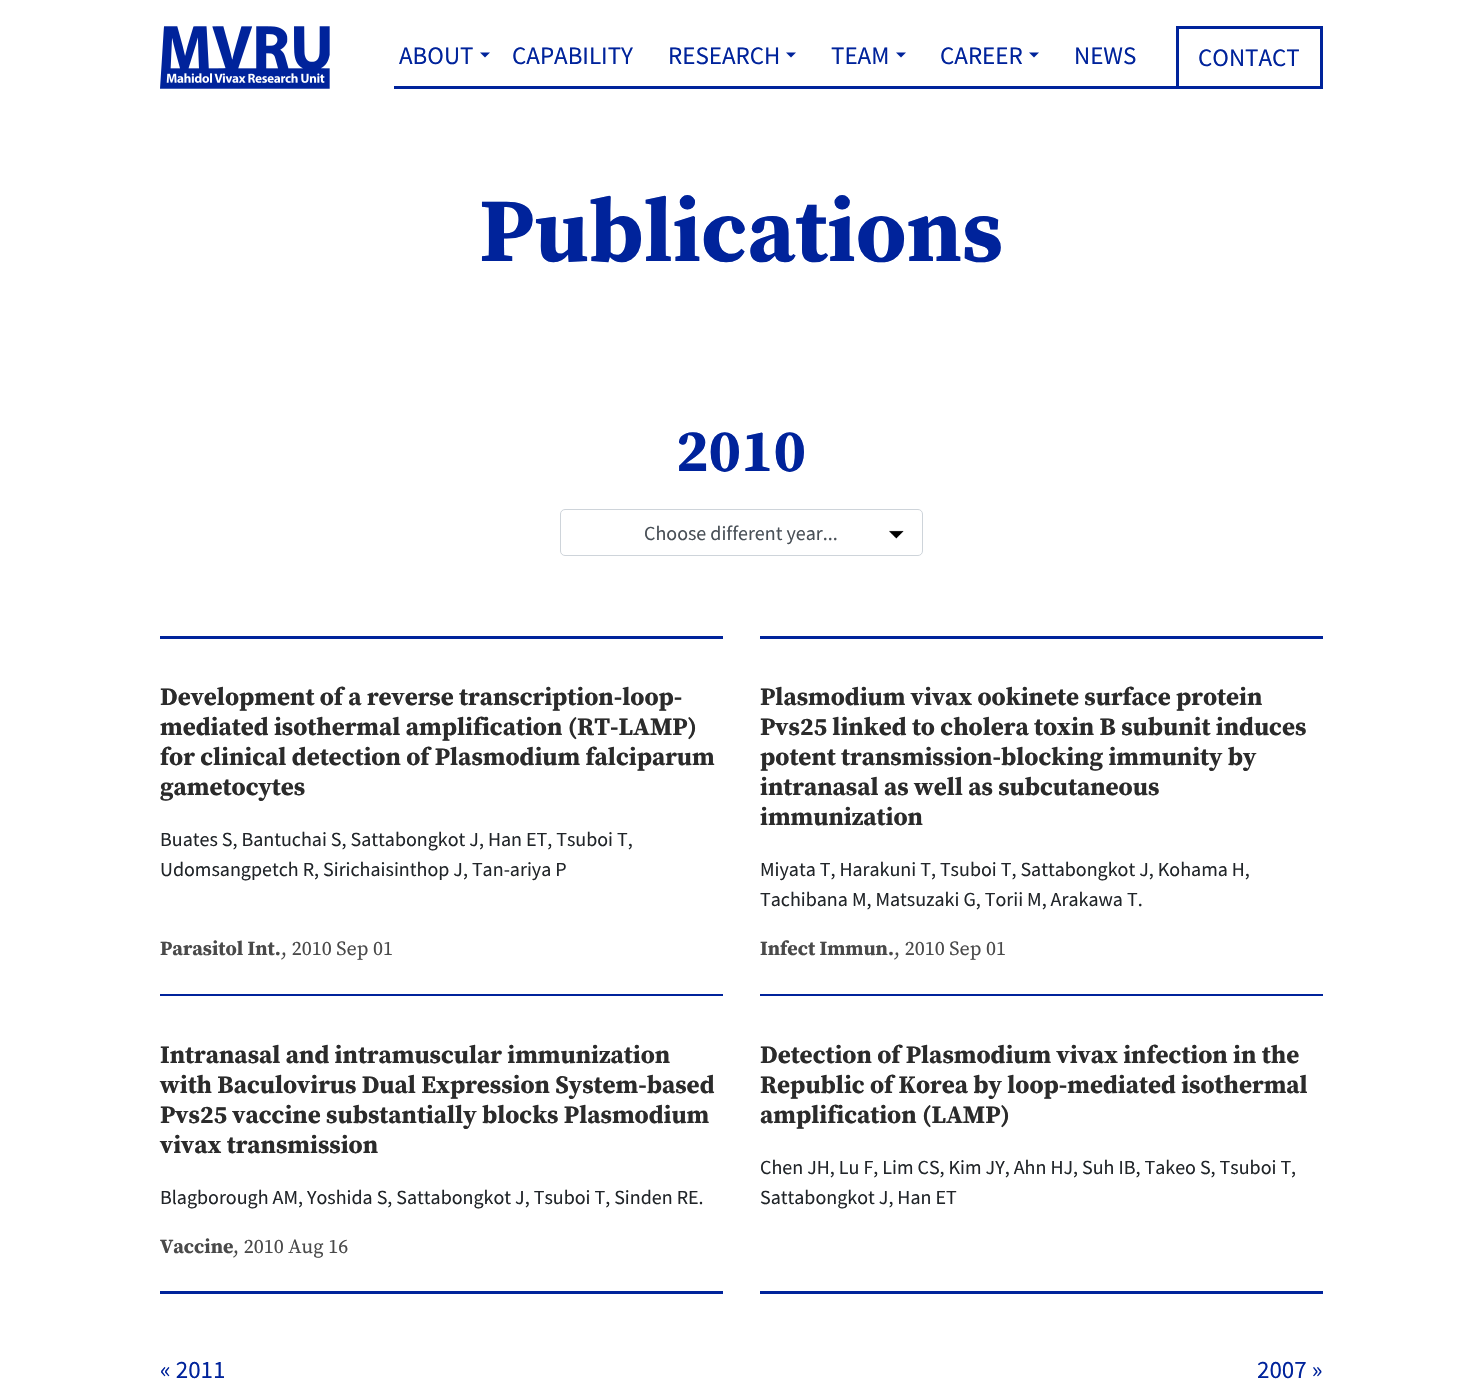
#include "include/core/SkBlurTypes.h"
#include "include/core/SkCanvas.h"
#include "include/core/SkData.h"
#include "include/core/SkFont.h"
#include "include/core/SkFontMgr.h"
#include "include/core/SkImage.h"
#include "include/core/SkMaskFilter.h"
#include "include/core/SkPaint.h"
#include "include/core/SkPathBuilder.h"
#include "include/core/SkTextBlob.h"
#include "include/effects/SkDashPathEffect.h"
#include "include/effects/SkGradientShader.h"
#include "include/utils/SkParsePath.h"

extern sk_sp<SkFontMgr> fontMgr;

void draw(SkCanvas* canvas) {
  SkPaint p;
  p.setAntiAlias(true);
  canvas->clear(SK_ColorWHITE);
  canvas->drawImageRect(SkImages::DeferredFromEncodedData(SkData::MakeFromFileName("images/1.png")), SkRect::MakeLTRB(160, 26, 330, 89), SkSamplingOptions());
  p.setColor(SkColorSetRGB(0, 35, 155));
  canvas->drawRect(SkRect::MakeLTRB(394, 86, 1323, 89), p);
  canvas->drawPath(SkPathBuilder().moveTo(480, 52.5f).lineTo(490, 52.5f).lineTo(485, 57.5f).close().detach(), p);
  canvas->drawPath(SkPathBuilder().moveTo(786, 52.5f).lineTo(796, 52.5f).lineTo(791, 57.5f).close().detach(), p);
  canvas->drawPath(SkPathBuilder().moveTo(896, 52.5f).lineTo(906, 52.5f).lineTo(901, 57.5f).close().detach(), p);
  canvas->drawPath(SkPathBuilder().moveTo(1029, 52.5f).lineTo(1039, 52.5f).lineTo(1034, 57.5f).close().detach(), p);
  canvas->drawRect(SkRect::MakeLTRB(1176, 26, 1323, 29), p);
  canvas->drawRect(SkRect::MakeLTRB(1320, 26, 1323, 86), p);
  canvas->drawRect(SkRect::MakeLTRB(1176, 26, 1179, 86), p);
  canvas->drawImageRect(SkImages::DeferredFromEncodedData(SkData::MakeFromFileName("images/2.png")), SkRect::MakeLTRB(889, 530, 904, 539), SkSamplingOptions());
  p.setStyle(SkPaint::kStroke_Style);
  p.setStrokeWidth(1);
  p.setColor(SkColorSetRGB(206, 212, 218));
  canvas->drawRoundRect(SkRect::MakeLTRB(560.5f, 509.5f, 922.5f, 555.5f), 4.5f, 4.5f, p);
  p.setStyle(SkPaint::kFill_Style);
  p.setColor(SkColorSetRGB(0, 35, 155));
  canvas->drawRect(SkRect::MakeLTRB(160, 636, 723, 639), p);
  canvas->drawRect(SkRect::MakeLTRB(160, 994, 723, 996), p);
  canvas->drawRect(SkRect::MakeLTRB(760, 636, 1323, 639), p);
  canvas->drawRect(SkRect::MakeLTRB(760, 994, 1323, 996), p);
  canvas->drawRect(SkRect::MakeLTRB(160, 1291, 723, 1294), p);
  canvas->drawRect(SkRect::MakeLTRB(760, 1291, 1323, 1294), p);
  SkFont font1(fontMgr->matchFamilyStyle("Source Sans Pro", SkFontStyle::Normal()), 25);
  font1.setSubpixel(true);
  canvas->drawString("ABOUT", 399, 64, font1, p);
  canvas->drawString("CAPABILITY", 512, 64, font1, p);
  canvas->drawString("RESEARCH", 668, 64, font1, p);
  canvas->drawString("TEAM", 831, 64, font1, p);
  canvas->drawString("CAREER", 940, 64, font1, p);
  canvas->drawString("NEWS", 1074, 64, font1, p);
  canvas->drawString("CONTACT", 1198, 66, font1, p);
  SkFont font2(fontMgr->matchFamilyStyle("Source Serif Pro", SkFontStyle::Bold()), 90);
  font2.setSubpixel(true);
  canvas->drawString("Publications", 479, 261, font2, p);
  SkFont font3(fontMgr->matchFamilyStyle("Source Serif Pro", SkFontStyle::Bold()), 60);
  font3.setSubpixel(true);
  canvas->drawString("2010", 676, 471, font3, p);
  SkFont font4(fontMgr->matchFamilyStyle("Source Sans Pro", SkFontStyle::Normal()), 20);
  font4.setSubpixel(true);
  p.setColor(SkColorSetRGB(73, 80, 87));
  canvas->drawString("Choose different year...", 644, 540, font4, p);
  SkFont font5(fontMgr->matchFamilyStyle("Source Serif Pro", SkFontStyle::Bold()), 25);
  font5.setSubpixel(true);
  p.setColor(SkColorSetRGB(43, 43, 43));
  canvas->drawString("Development of a reverse transcription-loop-", 160, 705, font5, p);
  canvas->drawString("mediated isothermal amplification (RT-LAMP)", 160, 735, font5, p);
  canvas->drawString("for clinical detection of Plasmodium falciparum", 160, 765, font5, p);
  canvas->drawString("gametocytes", 160, 795, font5, p);
  p.setColor(SkColorSetRGB(33, 37, 41));
  canvas->drawString("Buates S, Bantuchai S, Sattabongkot J, Han ET, Tsuboi T,", 160, 846, font4, p);
  canvas->drawString("Udomsangpetch R, Sirichaisinthop J, Tan-ariya P", 160, 876, font4, p);
  SkFont font6(fontMgr->matchFamilyStyle("Source Serif Pro", SkFontStyle::Bold()), 20);
  font6.setSubpixel(true);
  p.setColor(SkColorSetRGB(74, 74, 74));
  canvas->drawString("Parasitol Int.", 160, 955, font6, p);
  SkFont font7(fontMgr->matchFamilyStyle("Source Serif Pro", SkFontStyle::Normal()), 20);
  font7.setSubpixel(true);
  canvas->drawString(", 2010 Sep 01", 281, 955, font7, p);
  p.setColor(SkColorSetRGB(43, 43, 43));
  canvas->drawString("Plasmodium vivax ookinete surface protein", 760, 705, font5, p);
  canvas->drawString("Pvs25 linked to cholera toxin B subunit induces", 760, 735, font5, p);
  canvas->drawString("potent transmission-blocking immunity by", 760, 765, font5, p);
  canvas->drawString("intranasal as well as subcutaneous", 760, 795, font5, p);
  canvas->drawString("immunization", 760, 825, font5, p);
  p.setColor(SkColorSetRGB(33, 37, 41));
  canvas->drawString("Miyata T, Harakuni T, Tsuboi T, Sattabongkot J, Kohama H,", 760, 876, font4, p);
  canvas->drawString("Tachibana M, Matsuzaki G, Torii M, Arakawa T.", 760, 906, font4, p);
  p.setColor(SkColorSetRGB(74, 74, 74));
  canvas->drawString("Infect Immun.", 760, 955, font6, p);
  canvas->drawString(", 2010 Sep 01", 894, 955, font7, p);
  p.setColor(SkColorSetRGB(43, 43, 43));
  canvas->drawString("Intranasal and intramuscular immunization", 160, 1063, font5, p);
  canvas->drawString("with Baculovirus Dual Expression System-based", 160, 1093, font5, p);
  canvas->drawString("Pvs25 vaccine substantially blocks Plasmodium", 160, 1123, font5, p);
  canvas->drawString("vivax transmission", 160, 1153, font5, p);
  p.setColor(SkColorSetRGB(33, 37, 41));
  canvas->drawString("Blagborough AM, Yoshida S, Sattabongkot J, Tsuboi T, Sinden RE.", 160, 1204, font4, p);
  p.setColor(SkColorSetRGB(74, 74, 74));
  canvas->drawString("Vaccine", 160, 1253, font6, p);
  canvas->drawString(", 2010 Aug 16", 233, 1253, font7, p);
  p.setColor(SkColorSetRGB(43, 43, 43));
  canvas->drawString("Detection of Plasmodium vivax infection in the", 760, 1063, font5, p);
  canvas->drawString("Republic of Korea by loop-mediated isothermal", 760, 1093, font5, p);
  canvas->drawString("amplification (LAMP)", 760, 1123, font5, p);
  p.setColor(SkColorSetRGB(33, 37, 41));
  canvas->drawString("Chen JH, Lu F, Lim CS, Kim JY, Ahn HJ, Suh IB, Takeo S, Tsuboi T,", 760, 1174, font4, p);
  canvas->drawString("Sattabongkot J, Han ET", 760, 1204, font4, p);
  p.setColor(SkColorSetRGB(0, 35, 155));
  canvas->drawString("« 2011", 160, 1378, font1, p);
  canvas->drawString("2007 »", 1257, 1378, font1, p);
}
